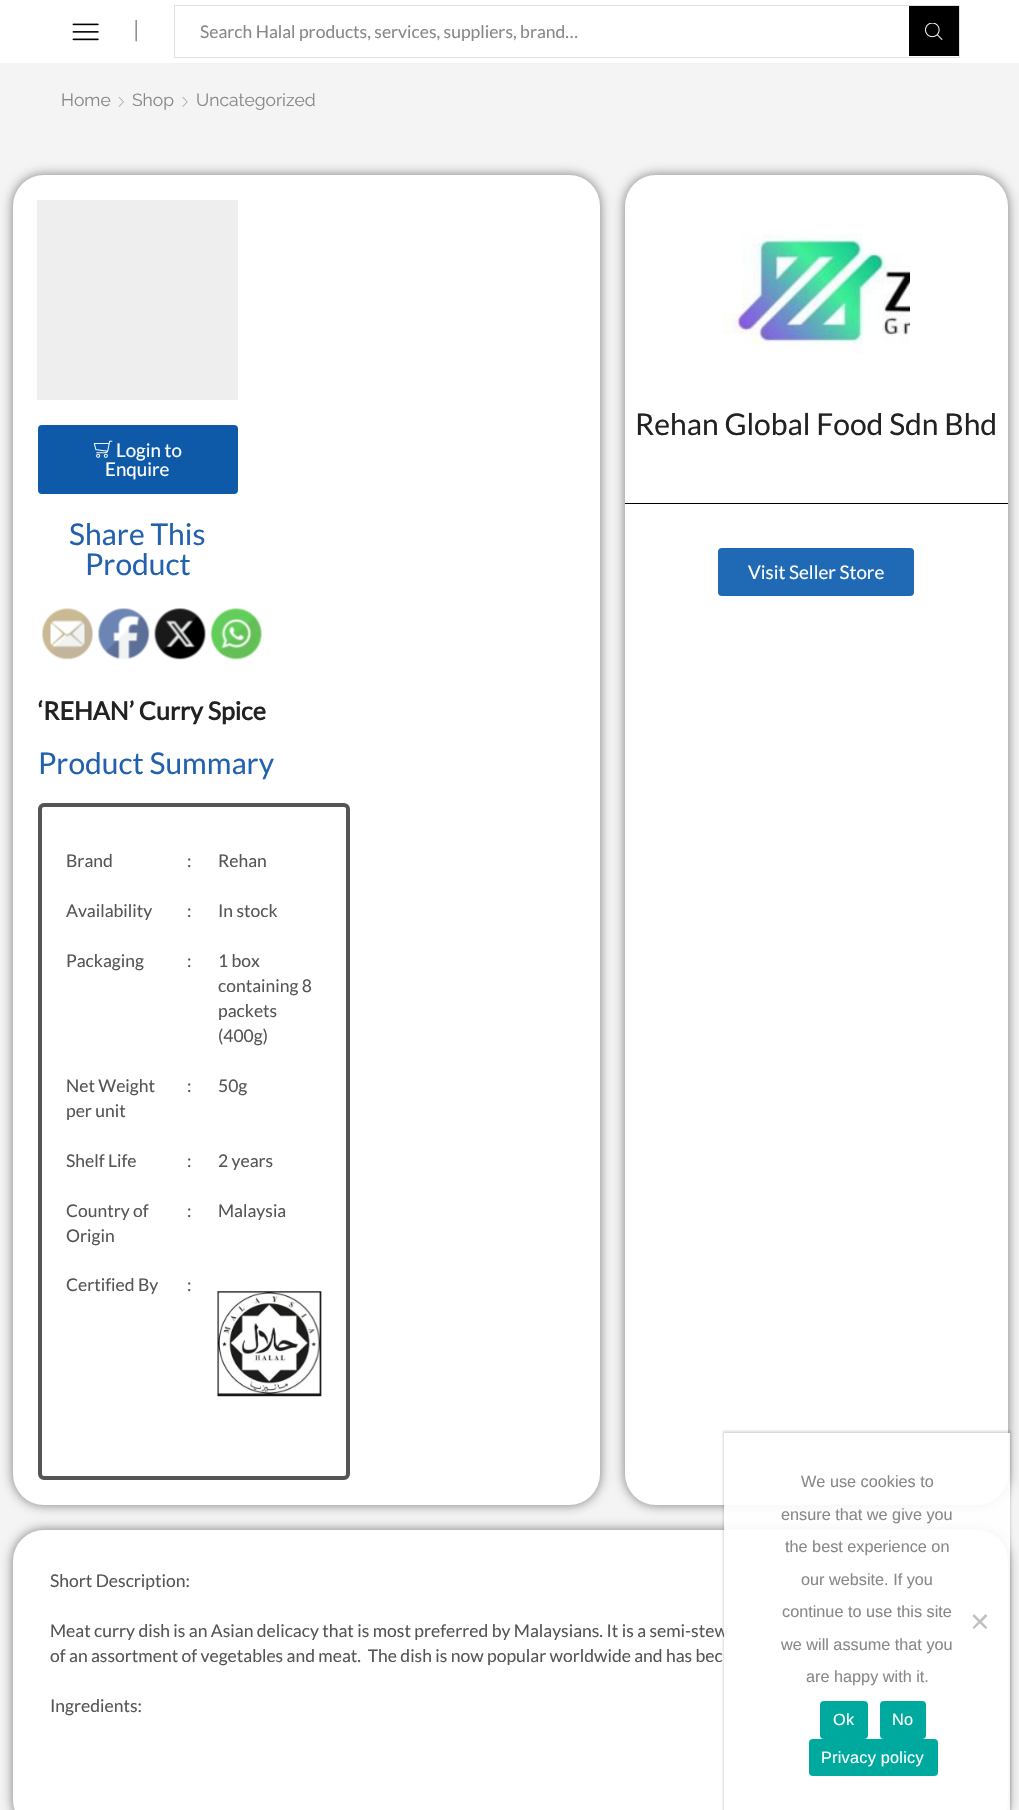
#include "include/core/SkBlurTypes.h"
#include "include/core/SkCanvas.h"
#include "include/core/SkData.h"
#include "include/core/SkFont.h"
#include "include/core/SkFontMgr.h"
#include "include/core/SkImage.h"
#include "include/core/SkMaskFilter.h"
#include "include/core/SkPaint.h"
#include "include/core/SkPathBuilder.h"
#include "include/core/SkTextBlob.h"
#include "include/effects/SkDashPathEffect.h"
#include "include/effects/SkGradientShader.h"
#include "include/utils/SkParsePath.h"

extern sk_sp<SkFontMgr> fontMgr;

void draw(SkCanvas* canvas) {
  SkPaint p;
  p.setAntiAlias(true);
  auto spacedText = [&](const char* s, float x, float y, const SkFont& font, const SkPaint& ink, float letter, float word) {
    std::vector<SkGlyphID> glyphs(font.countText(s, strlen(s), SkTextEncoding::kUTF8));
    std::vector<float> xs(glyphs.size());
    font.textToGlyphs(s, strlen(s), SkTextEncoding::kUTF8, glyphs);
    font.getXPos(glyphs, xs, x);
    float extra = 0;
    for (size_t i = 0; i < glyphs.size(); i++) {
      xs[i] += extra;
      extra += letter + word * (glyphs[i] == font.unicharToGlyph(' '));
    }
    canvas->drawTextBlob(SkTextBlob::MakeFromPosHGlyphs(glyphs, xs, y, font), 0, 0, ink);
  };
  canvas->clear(SkColorSetRGB(244, 244, 244));
  p.setColor(SK_ColorWHITE);
  canvas->drawRect(SkRect::MakeLTRB(0, 0, 1019, 63), p);
  canvas->drawImageRect(SkImages::DeferredFromEncodedData(SkData::MakeFromFileName("images/1.png")), SkRect::MakeLTRB(72, 23, 99, 41), SkSamplingOptions());
  p.setStyle(SkPaint::kStroke_Style);
  p.setStrokeWidth(1);
  p.setColor(SkColorSetRGB(225, 225, 225));
  canvas->drawRect(SkRect::MakeLTRB(174.5f, 5.5f, 959.5f, 57.5f), p);
  p.setStyle(SkPaint::kFill_Style);
  p.setColor(SK_ColorBLACK);
  canvas->drawRect(SkRect::MakeLTRB(909, 6, 959, 56), p);
  canvas->drawImageRect(SkImages::DeferredFromEncodedData(SkData::MakeFromFileName("images/2.png")), SkRect::MakeLTRB(925, 23, 943, 40), SkSamplingOptions());
  canvas->drawImageRect(SkImages::DeferredFromEncodedData(SkData::MakeFromFileName("images/3.png")), SkRect::MakeLTRB(118, 97, 124, 107), SkSamplingOptions());
  canvas->drawImageRect(SkImages::DeferredFromEncodedData(SkData::MakeFromFileName("images/4.png")), SkRect::MakeLTRB(182, 97, 188, 107), SkSamplingOptions());
  p.setColor(SkColorSetARGB(128, 0, 0, 0));
  p.setMaskFilter(SkMaskFilter::MakeBlur(kNormal_SkBlurStyle, 6));
  canvas->drawRoundRect(SkRect::MakeLTRB(13, 175, 600, 1505), 31, 31, p);
  p.setMaskFilter(nullptr);
  p.setColor(SK_ColorWHITE);
  canvas->drawRoundRect(SkRect::MakeLTRB(13, 175, 600, 1505), 31, 31, p);
  p.setColor(SkColorSetRGB(238, 238, 238));
  canvas->drawRect(SkRect::MakeLTRB(37, 200, 238, 400), p);
  p.setColor(SkColorSetRGB(14, 90, 168));
  canvas->drawRoundRect(SkRect::MakeLTRB(38, 425, 238, 494), 4, 4, p);
  canvas->drawImageRect(SkImages::DeferredFromEncodedData(SkData::MakeFromFileName("images/5.png")), SkRect::MakeLTRB(93, 440, 113, 458), SkSamplingOptions());
  canvas->drawImageRect(SkImages::DeferredFromEncodedData(SkData::MakeFromFileName("images/6.png")), SkRect::MakeLTRB(42, 608, 93, 660), SkSamplingOptions());
  canvas->drawImageRect(SkImages::DeferredFromEncodedData(SkData::MakeFromFileName("images/7.png")), SkRect::MakeLTRB(98, 608, 150, 660), SkSamplingOptions());
  canvas->drawImageRect(SkImages::DeferredFromEncodedData(SkData::MakeFromFileName("images/8.png")), SkRect::MakeLTRB(154, 608, 206, 660), SkSamplingOptions());
  canvas->drawImageRect(SkImages::DeferredFromEncodedData(SkData::MakeFromFileName("images/9.png")), SkRect::MakeLTRB(210, 608, 262, 660), SkSamplingOptions());
  p.setStyle(SkPaint::kStroke_Style);
  p.setStrokeWidth(4);
  p.setColor(SkColorSetRGB(85, 85, 85));
  canvas->drawRoundRect(SkRect::MakeLTRB(40, 805, 348, 1478), 4, 4, p);
  canvas->drawImageRect(SkImages::DeferredFromEncodedData(SkData::MakeFromFileName("images/10.png")), SkRect::MakeLTRB(217, 1291, 322, 1397), SkSamplingOptions());
  p.setStyle(SkPaint::kFill_Style);
  p.setColor(SkColorSetARGB(128, 0, 0, 0));
  p.setMaskFilter(SkMaskFilter::MakeBlur(kNormal_SkBlurStyle, 6));
  canvas->drawRoundRect(SkRect::MakeLTRB(625, 175, 1008, 1505), 31, 31, p);
  p.setMaskFilter(nullptr);
  p.setColor(SK_ColorWHITE);
  canvas->drawRoundRect(SkRect::MakeLTRB(625, 175, 1008, 1505), 31, 31, p);
  canvas->drawImageRect(SkImages::DeferredFromEncodedData(SkData::MakeFromFileName("images/11.png")), SkRect::MakeLTRB(722, 233, 910, 354), SkSamplingOptions());
  p.setColor(SK_ColorBLACK);
  canvas->drawRect(SkRect::MakeLTRB(625, 503, 1008, 504), p);
  p.setColor(SkColorSetRGB(32, 105, 181));
  canvas->drawRoundRect(SkRect::MakeLTRB(718, 548, 914, 596), 4, 4, p);
  p.setColor(SkColorSetARGB(128, 0, 0, 0));
  p.setMaskFilter(SkMaskFilter::MakeBlur(kNormal_SkBlurStyle, 6));
  canvas->drawRoundRect(SkRect::MakeLTRB(13, 1530, 1008, 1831), 31, 31, p);
  p.setMaskFilter(nullptr);
  p.setColor(SK_ColorWHITE);
  canvas->drawRoundRect(SkRect::MakeLTRB(13, 1530, 1008, 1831), 31, 31, p);
  canvas->save();
  canvas->clipPath(SkPathBuilder(SkPathFillType::kEvenOdd).moveTo(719, 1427).lineTo(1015, 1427).lineTo(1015, 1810).lineTo(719, 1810).close().moveTo(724, 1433).lineTo(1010, 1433).lineTo(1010, 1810).lineTo(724, 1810).close().detach(), true);
  p.setColor(SkColorSetARGB(38, 0, 0, 0));
  p.setMaskFilter(SkMaskFilter::MakeBlur(kNormal_SkBlurStyle, 1));
  canvas->drawRect(SkRect::MakeLTRB(723, 1431, 1011, 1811), p);
  p.setMaskFilter(nullptr);
  canvas->restore();
  SkFont font1(fontMgr->matchFamilyStyle("Liberation Serif", SkFontStyle::Normal()), 17.5f);
  font1.setSubpixel(true);
  p.setColor(SkColorSetRGB(128, 128, 128));
  canvas->drawString("│", 130, 36, font1, p);
  SkFont font2(fontMgr->matchFamilyStyle("Lato", SkFontStyle::Normal()), 17.5f);
  font2.setSubpixel(true);
  p.setColor(SkColorSetRGB(136, 136, 136));
  canvas->drawString("Search Halal products, services, suppliers, brand…", 200, 38, font2, p);
  SkFont font3(fontMgr->matchFamilyStyle("Raleway", SkFontStyle::Normal()), 17.5f);
  font3.setSubpixel(true);
  canvas->drawString("Home", 61, 106, font3, p);
  canvas->drawString("Shop", 132, 106, font3, p);
  canvas->drawString("Uncategorized", 196, 106, font3, p);
  SkFont font4(fontMgr->matchFamilyStyle("Lato", SkFontStyle::Normal()), 18.75f);
  font4.setSubpixel(true);
  p.setColor(SK_ColorWHITE);
  canvas->drawString("Login to", 116, 457, font4, p);
  canvas->drawString("Enquire", 105, 476, font4, p);
  SkFont font5(fontMgr->matchFamilyStyle("Lato", SkFontStyle::Normal()), 30);
  font5.setSubpixel(true);
  p.setColor(SkColorSetRGB(34, 97, 174));
  canvas->drawString("Share This", 69, 545, font5, p);
  canvas->drawString("Product", 85, 575, font5, p);
  SkFont font6(fontMgr->matchFamilyStyle("Lato", SkFontStyle::Bold()), 25);
  font6.setSubpixel(true);
  p.setColor(SkColorSetRGB(34, 34, 34));
  canvas->drawString("‘REHAN’ Curry Spice", 38, 720, font6, p);
  p.setColor(SkColorSetRGB(34, 97, 174));
  canvas->drawString("Product Summary", 38, 774, font5, p);
  p.setColor(SkColorSetRGB(85, 85, 85));
  canvas->drawString("Brand", 66, 867, font2, p);
  canvas->drawString(":", 187, 867, font2, p);
  canvas->drawString("Rehan", 218, 867, font2, p);
  canvas->drawString("Availability", 66, 917, font2, p);
  canvas->drawString(":", 187, 917, font2, p);
  canvas->drawString("In stock", 218, 917, font2, p);
  canvas->drawString("Packaging", 66, 967, font2, p);
  canvas->drawString(":", 187, 967, font2, p);
  canvas->drawString("1 box", 218, 967, font2, p);
  canvas->drawString("containing 8", 218, 992, font2, p);
  canvas->drawString("packets", 218, 1017, font2, p);
  canvas->drawString("(400g)", 218, 1042, font2, p);
  canvas->drawString("Net Weight", 66, 1092, font2, p);
  canvas->drawString("per unit", 66, 1117, font2, p);
  canvas->drawString(":", 187, 1092, font2, p);
  canvas->drawString("50g", 218, 1092, font2, p);
  canvas->drawString("Shelf Life", 66, 1167, font2, p);
  canvas->drawString(":", 187, 1167, font2, p);
  canvas->drawString("2 years", 218, 1167, font2, p);
  canvas->drawString("Country of", 66, 1217, font2, p);
  canvas->drawString("Origin", 66, 1242, font2, p);
  canvas->drawString(":", 187, 1217, font2, p);
  canvas->drawString("Malaysia", 218, 1217, font2, p);
  canvas->drawString("Certified By", 66, 1291, font2, p);
  canvas->drawString(":", 187, 1291, font2, p);
  p.setColor(SkColorSetRGB(34, 34, 34));
  canvas->drawString("Rehan Global Food Sdn Bhd", 635, 435, font5, p);
  p.setColor(SK_ColorWHITE);
  canvas->drawString("Visit Seller Store", 748, 579, font4, p);
  p.setColor(SkColorSetRGB(85, 85, 85));
  canvas->drawString("Short Description:", 50, 1587, font2, p);
  canvas->drawString("Meat curry dish is an Asian delicacy that is most preferred by Malaysians. It is a semi-stew", 50, 1637, font2, p);
  canvas->drawString("of an assortment of vegetables and meat.  The dish is now popular worldwide and has bec", 50, 1662, font2, p);
  canvas->drawString("Ingredients:", 50, 1712, font2, p);
  p.setColor(SkColorSetARGB(230, 255, 255, 255));
  canvas->drawRect(SkRect::MakeLTRB(724, 1433, 1010, 1810), p);
  SkFont font7(fontMgr->matchFamilyStyle("Liberation Sans", SkFontStyle::Normal()), 16.25f);
  font7.setSubpixel(true);
  p.setColor(SkColorSetRGB(136, 136, 136));
  canvas->drawString("We use cookies to", 801, 1487, font7, p);
  canvas->drawString("ensure that we give you", 781, 1520, font7, p);
  canvas->drawString("the best experience on", 785, 1552, font7, p);
  canvas->drawString("our website. If you", 801, 1585, font7, p);
  canvas->drawString("continue to use this site", 782, 1617, font7, p);
  canvas->drawString("we will assume that you", 781, 1650, font7, p);
  canvas->drawString("are happy with it.", 806, 1682, font7, p);
  p.setColor(SkColorSetRGB(192, 192, 192));
  canvas->drawPath(SkPathBuilder().moveTo(985.5f, 1614).lineTo(987.5f, 1616).lineTo(974, 1629).lineTo(972.5f, 1627.5f).close().detach(), p);
  canvas->drawPath(SkPathBuilder().moveTo(972.5f, 1616).lineTo(974, 1614).lineTo(987.5f, 1627.5f).lineTo(985.5f, 1629).close().detach(), p);
  p.setColor(SkColorSetRGB(0, 169, 157));
  canvas->drawRoundRect(SkRect::MakeLTRB(820, 1701, 868, 1739), 4, 4, p);
  p.setColor(SK_ColorWHITE);
  spacedText("Ok", 833, 1725, font7, p, 0.25f, 0);
  p.setColor(SkColorSetRGB(0, 169, 157));
  canvas->drawRoundRect(SkRect::MakeLTRB(880, 1701, 926, 1739), 4, 4, p);
  p.setColor(SK_ColorWHITE);
  spacedText("No", 892, 1725, font7, p, 0.25f, 0);
  p.setColor(SkColorSetRGB(0, 169, 157));
  canvas->drawRoundRect(SkRect::MakeLTRB(809, 1739, 938, 1776), 4, 4, p);
  p.setColor(SK_ColorWHITE);
  spacedText("Privacy policy", 821, 1763, font7, p, 0.25f, 0);
}
